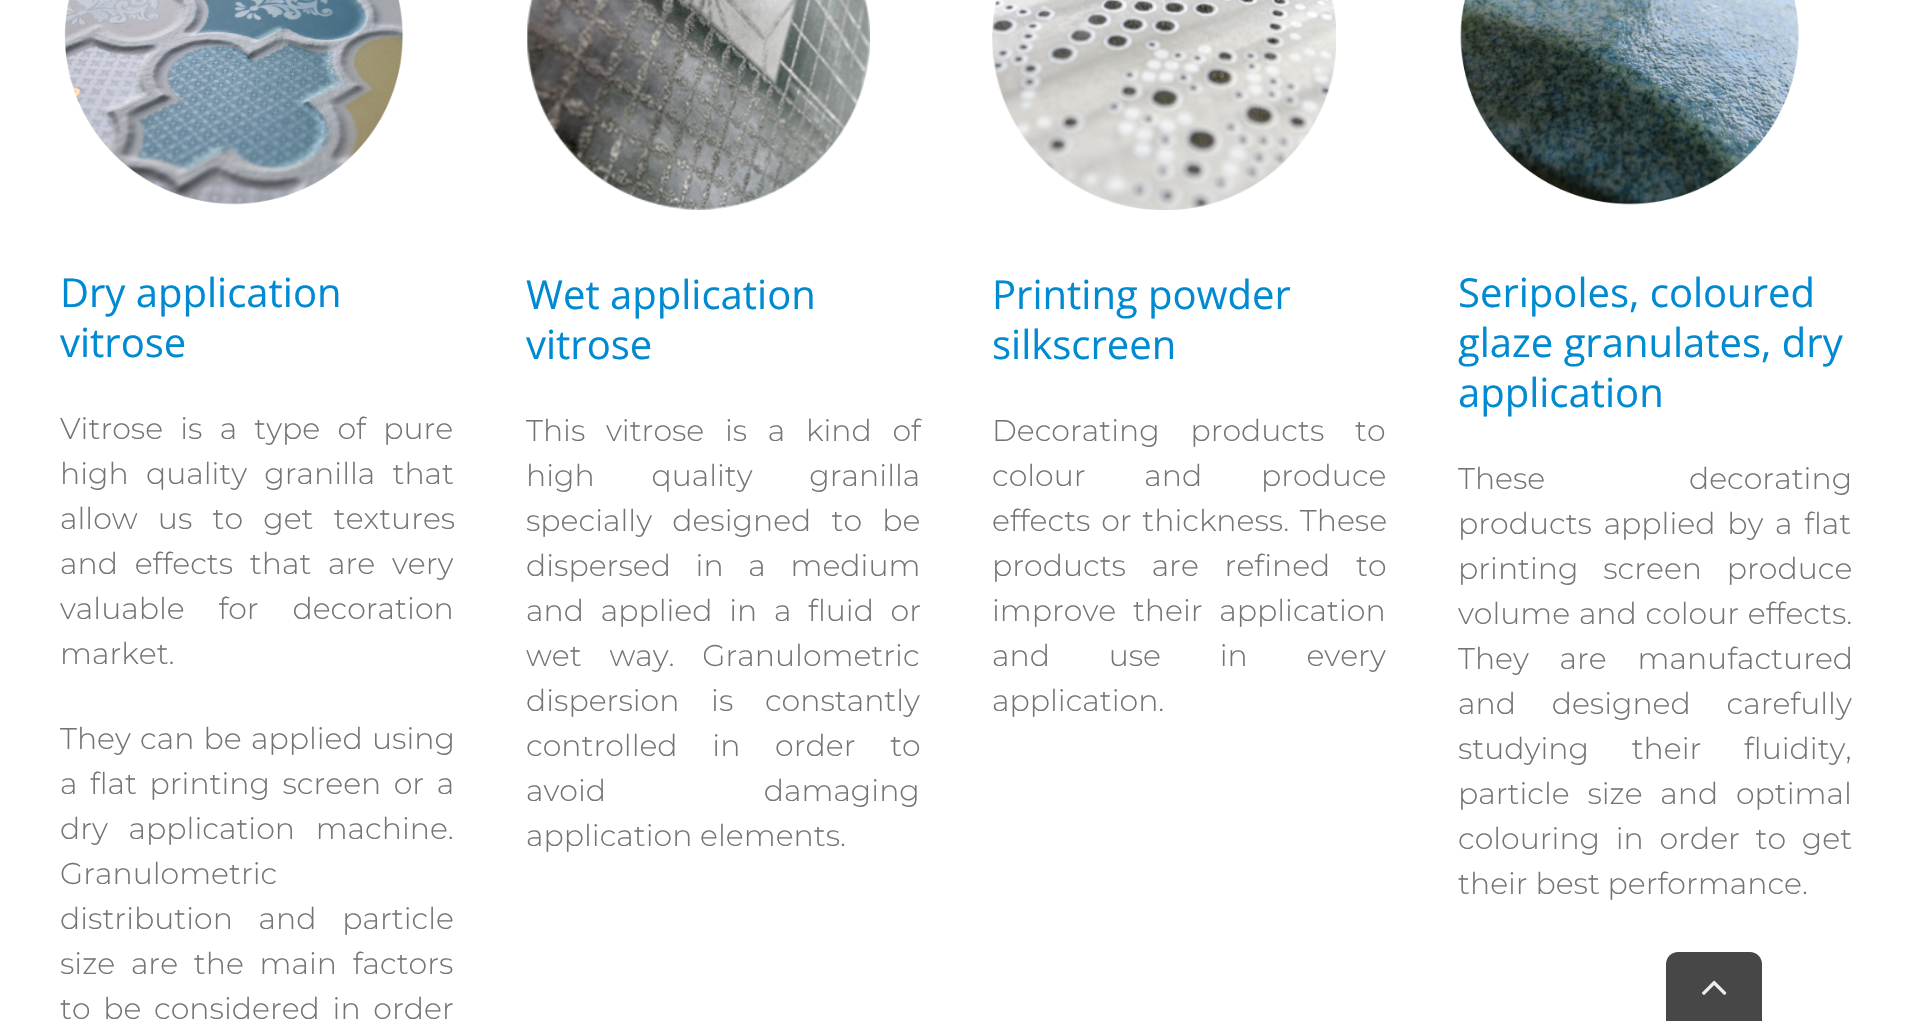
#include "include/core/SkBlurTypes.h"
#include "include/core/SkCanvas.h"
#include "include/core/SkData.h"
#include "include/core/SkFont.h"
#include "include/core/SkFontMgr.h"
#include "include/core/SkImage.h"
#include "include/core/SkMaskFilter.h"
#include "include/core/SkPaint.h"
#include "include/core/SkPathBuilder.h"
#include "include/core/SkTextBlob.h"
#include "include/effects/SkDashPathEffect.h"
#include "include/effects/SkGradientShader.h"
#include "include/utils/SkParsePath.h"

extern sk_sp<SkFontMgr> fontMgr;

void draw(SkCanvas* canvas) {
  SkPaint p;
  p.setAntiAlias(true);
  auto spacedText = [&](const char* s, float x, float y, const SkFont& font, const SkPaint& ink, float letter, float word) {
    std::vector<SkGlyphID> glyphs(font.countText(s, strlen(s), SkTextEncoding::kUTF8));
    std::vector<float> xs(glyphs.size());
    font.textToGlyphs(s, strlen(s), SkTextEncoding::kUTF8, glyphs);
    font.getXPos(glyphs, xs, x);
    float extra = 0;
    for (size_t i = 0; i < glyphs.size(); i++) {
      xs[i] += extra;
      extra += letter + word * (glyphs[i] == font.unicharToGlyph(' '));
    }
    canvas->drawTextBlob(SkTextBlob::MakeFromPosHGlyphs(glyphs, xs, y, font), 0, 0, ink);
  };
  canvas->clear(SK_ColorWHITE);
  canvas->drawImageRect(SkImages::DeferredFromEncodedData(SkData::MakeFromFileName("images/1.png")), SkRect::MakeLTRB(64, 0, 404, 205), SkSamplingOptions());
  canvas->drawImageRect(SkImages::DeferredFromEncodedData(SkData::MakeFromFileName("images/2.png")), SkRect::MakeLTRB(527, 0, 870, 210), SkSamplingOptions());
  canvas->drawImageRect(SkImages::DeferredFromEncodedData(SkData::MakeFromFileName("images/3.png")), SkRect::MakeLTRB(992, 0, 1336, 210), SkSamplingOptions());
  canvas->drawImageRect(SkImages::DeferredFromEncodedData(SkData::MakeFromFileName("images/4.png")), SkRect::MakeLTRB(1460, 0, 1799, 205), SkSamplingOptions());
  p.setColor(SkColorSetRGB(71, 71, 71));
  canvas->drawPath(SkPathBuilder().moveTo(1678, 952).lineTo(1750, 952).cubicTo(1756.5f, 952, 1762, 957.5f, 1762, 964).lineTo(1762, 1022).lineTo(1666, 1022).lineTo(1666, 964).cubicTo(1666, 957.5f, 1671.5f, 952, 1678, 952).close().detach(), p);
  canvas->drawImageRect(SkImages::DeferredFromEncodedData(SkData::MakeFromFileName("images/5.png")), SkRect::MakeLTRB(1702, 980, 1727, 995), SkSamplingOptions());
  SkFont font1(fontMgr->matchFamilyStyle("Open Sans", SkFontStyle::Normal()), 40);
  font1.setSubpixel(true);
  p.setColor(SkColorSetRGB(0, 138, 209));
  canvas->drawString("Dry application", 60, 307, font1, p);
  canvas->drawString("vitrose", 60, 357, font1, p);
  SkFont font2(fontMgr->matchFamilyStyle("Montserrat", SkFontStyle(300, SkFontStyle::kNormal_Width, SkFontStyle::kUpright_Slant)), 30);
  font2.setSubpixel(true);
  p.setColor(SkColorSetRGB(116, 116, 116));
  spacedText("Vitrose is a type of pure", 60, 439, font2, p, 0, 9.5f);
  spacedText("high quality granilla that", 60, 484, font2, p, 0, 9.5f);
  spacedText("allow us to get textures", 60, 529, font2, p, 0, 12.5f);
  spacedText("and effects that are very", 60, 574, font2, p, 0, 9);
  spacedText("valuable for decoration", 60, 619, font2, p, 0, 26);
  canvas->drawString("market.", 60, 664, font2, p);
  spacedText("They can be applied using", 60, 749, font2, p, 0, 1.5f);
  spacedText("a flat printing screen or a", 60, 794, font2, p, 0, 4.75f);
  spacedText("dry application machine.", 60, 839, font2, p, 0, 13);
  canvas->drawString("Granulometric", 60, 884, font2, p);
  spacedText("distribution and particle", 60, 929, font2, p, 0, 18);
  spacedText("size are the main factors", 60, 974, font2, p, 0, 8);
  spacedText("to be considered in order", 60, 1019, font2, p, 0, 5);
  p.setColor(SkColorSetRGB(0, 138, 209));
  canvas->drawString("Wet application", 526, 309, font1, p);
  canvas->drawString("vitrose", 526, 359, font1, p);
  p.setColor(SkColorSetRGB(116, 116, 116));
  spacedText("This vitrose is a kind of", 526, 441, font2, p, 0, 13);
  spacedText("high quality granilla", 526, 486, font2, p, 0, 49);
  spacedText("specially designed to be", 526, 531, font2, p, 0, 12.5f);
  spacedText("dispersed in a medium", 526, 576, font2, p, 0, 17);
  spacedText("and applied in a fluid or", 526, 621, font2, p, 0, 9);
  spacedText("wet way. Granulometric", 526, 666, font2, p, 0, 20);
  spacedText("dispersion is constantly", 526, 711, font2, p, 0, 24);
  spacedText("controlled in order to", 526, 756, font2, p, 0, 27);
  spacedText("avoid damaging", 526, 801, font2, p, 0, 150);
  canvas->drawString("application elements.", 526, 846, font2, p);
  p.setColor(SkColorSetRGB(0, 138, 209));
  canvas->drawString("Printing powder", 992, 309, font1, p);
  canvas->drawString("silkscreen", 992, 359, font1, p);
  p.setColor(SkColorSetRGB(116, 116, 116));
  spacedText("Decorating products to", 992, 441, font2, p, 0, 23);
  spacedText("colour and produce", 992, 486, font2, p, 0, 51);
  spacedText("effects or thickness. These", 992, 531, font2, p, 0, 3);
  spacedText("products are refined to", 992, 576, font2, p, 0, 18);
  spacedText("improve their application", 992, 621, font2, p, 0, 9);
  spacedText("and use in every", 992, 666, font2, p, 0, 51);
  canvas->drawString("application.", 992, 711, font2, p);
  p.setColor(SkColorSetRGB(0, 138, 209));
  canvas->drawString("Seripoles, coloured", 1458, 307, font1, p);
  canvas->drawString("glaze granulates, dry", 1458, 357, font1, p);
  canvas->drawString("application", 1458, 407, font1, p);
  p.setColor(SkColorSetRGB(116, 116, 116));
  spacedText("These decorating", 1458, 489, font2, p, 0, 136);
  spacedText("products applied by a flat", 1458, 534, font2, p, 0, 4);
  spacedText("printing screen produce", 1458, 579, font2, p, 0, 17);
  spacedText("volume and colour effects.", 1458, 624, font2, p, 0, 1);
  spacedText("They are manufactured", 1458, 669, font2, p, 0, 23);
  spacedText("and designed carefully", 1458, 714, font2, p, 0, 28);
  spacedText("studying their fluidity,", 1458, 759, font2, p, 0, 35);
  spacedText("particle size and optimal", 1458, 804, font2, p, 0, 10);
  spacedText("colouring in order to get", 1458, 849, font2, p, 0, 8);
  canvas->drawString("their best performance.", 1458, 894, font2, p);
}
